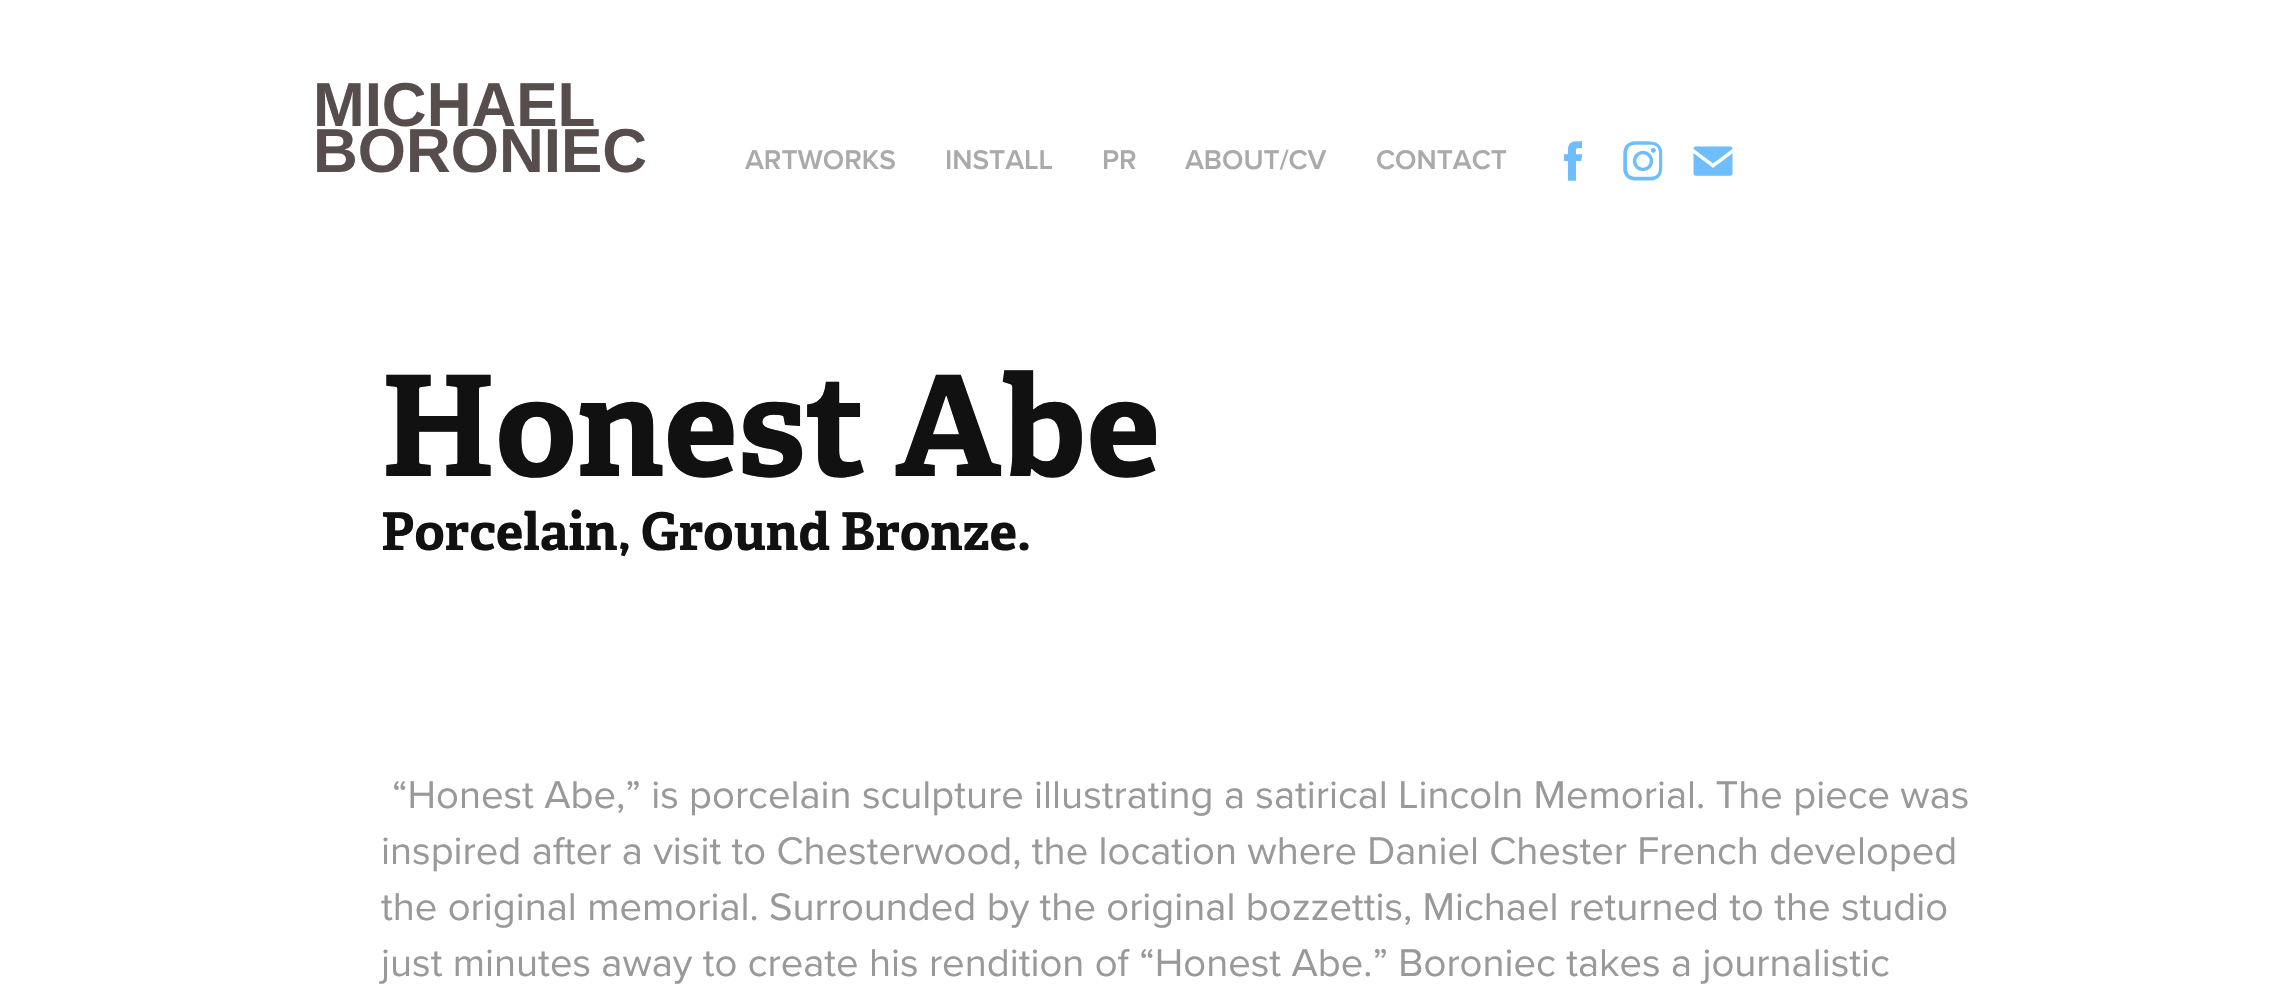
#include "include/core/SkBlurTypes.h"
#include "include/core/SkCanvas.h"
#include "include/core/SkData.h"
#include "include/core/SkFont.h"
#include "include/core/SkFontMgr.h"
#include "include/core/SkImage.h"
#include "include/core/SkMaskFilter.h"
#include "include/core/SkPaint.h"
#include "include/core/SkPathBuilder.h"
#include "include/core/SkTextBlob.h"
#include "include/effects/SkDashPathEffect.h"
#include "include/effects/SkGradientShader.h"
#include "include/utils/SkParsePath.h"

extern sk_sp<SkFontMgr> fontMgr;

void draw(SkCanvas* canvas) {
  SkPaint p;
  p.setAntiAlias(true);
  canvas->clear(SK_ColorWHITE);
  canvas->drawImageRect(SkImages::DeferredFromEncodedData(SkData::MakeFromFileName("images/1.png")), SkRect::MakeLTRB(1563, 141, 1582, 181), SkSamplingOptions());
  canvas->drawImageRect(SkImages::DeferredFromEncodedData(SkData::MakeFromFileName("images/2.png")), SkRect::MakeLTRB(1623, 141, 1663, 181), SkSamplingOptions());
  canvas->drawImageRect(SkImages::DeferredFromEncodedData(SkData::MakeFromFileName("images/3.png")), SkRect::MakeLTRB(1693, 146, 1733, 176), SkSamplingOptions());
  SkFont font1(fontMgr->matchFamilyStyle("Liberation Sans", SkFontStyle::Bold()), 62);
  font1.setSubpixel(true);
  p.setColor(SkColorSetRGB(87, 77, 77));
  canvas->drawString("MICHAEL", 313, 126, font1, p);
  canvas->drawString("BORONIEC", 313, 172, font1, p);
  SkFont font2(fontMgr->matchFamilyStyle("Proxima Nova", SkFontStyle(600, SkFontStyle::kNormal_Width, SkFontStyle::kUpright_Slant)), 28);
  font2.setSubpixel(true);
  p.setColor(SkColorSetRGB(170, 170, 170));
  canvas->drawString("ARTWORKS", 745, 169, font2, p);
  canvas->drawString("INSTALL", 945, 169, font2, p);
  canvas->drawString("PR", 1102, 169, font2, p);
  canvas->drawString("ABOUT/CV", 1185, 169, font2, p);
  canvas->drawString("CONTACT", 1376, 169, font2, p);
  SkFont font3(fontMgr->matchFamilyStyle("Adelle", SkFontStyle::Bold()), 140);
  font3.setSubpixel(true);
  p.setColor(SkColorSetRGB(17, 17, 17));
  canvas->drawString("Honest Abe", 381, 476, font3, p);
  SkFont font4(fontMgr->matchFamilyStyle("Adelle", SkFontStyle::Bold()), 52);
  font4.setSubpixel(true);
  canvas->drawString("Porcelain, Ground Bronze.", 381, 550, font4, p);
  SkFont font5(fontMgr->matchFamilyStyle("Proxima Nova", SkFontStyle::Normal()), 40);
  font5.setSubpixel(true);
  p.setColor(SkColorSetRGB(153, 153, 153));
  canvas->drawString("“Honest Abe,” is porcelain sculpture illustrating a satirical Lincoln Memorial. The piece was", 392, 808, font5, p);
  canvas->drawString("inspired after a visit to Chesterwood, the location where Daniel Chester French developed", 381, 864, font5, p);
  canvas->drawString("the original memorial. Surrounded by the original bozzettis, Michael returned to the studio", 381, 920, font5, p);
  canvas->drawString("just minutes away to create his rendition of “Honest Abe.” Boroniec takes a journalistic", 381, 976, font5, p);
}
